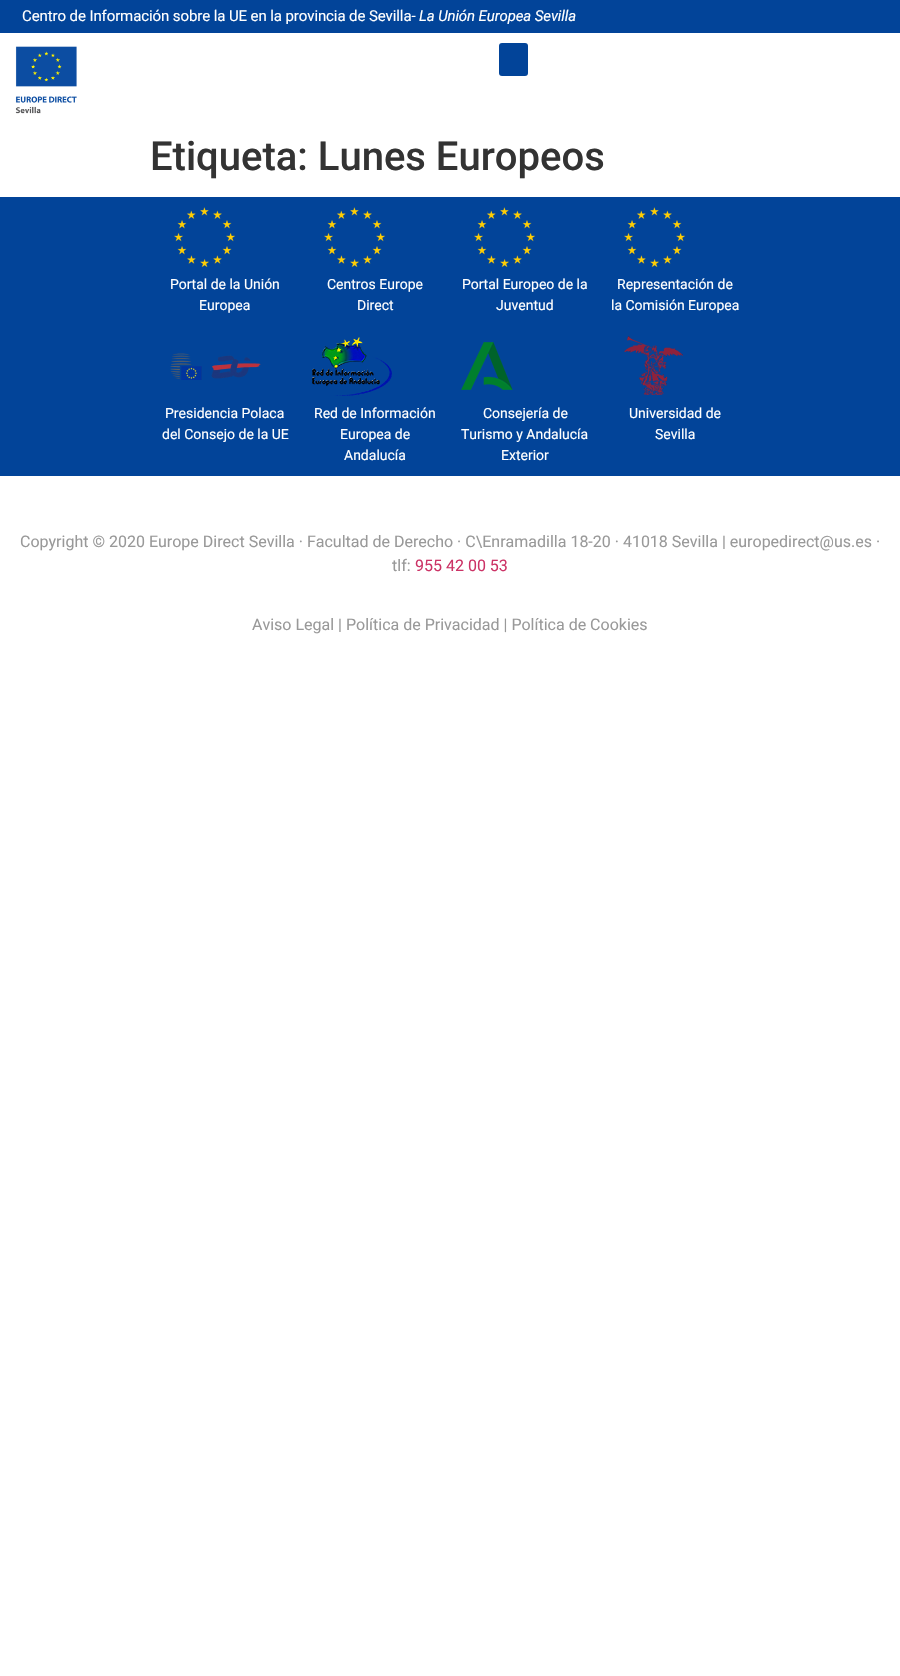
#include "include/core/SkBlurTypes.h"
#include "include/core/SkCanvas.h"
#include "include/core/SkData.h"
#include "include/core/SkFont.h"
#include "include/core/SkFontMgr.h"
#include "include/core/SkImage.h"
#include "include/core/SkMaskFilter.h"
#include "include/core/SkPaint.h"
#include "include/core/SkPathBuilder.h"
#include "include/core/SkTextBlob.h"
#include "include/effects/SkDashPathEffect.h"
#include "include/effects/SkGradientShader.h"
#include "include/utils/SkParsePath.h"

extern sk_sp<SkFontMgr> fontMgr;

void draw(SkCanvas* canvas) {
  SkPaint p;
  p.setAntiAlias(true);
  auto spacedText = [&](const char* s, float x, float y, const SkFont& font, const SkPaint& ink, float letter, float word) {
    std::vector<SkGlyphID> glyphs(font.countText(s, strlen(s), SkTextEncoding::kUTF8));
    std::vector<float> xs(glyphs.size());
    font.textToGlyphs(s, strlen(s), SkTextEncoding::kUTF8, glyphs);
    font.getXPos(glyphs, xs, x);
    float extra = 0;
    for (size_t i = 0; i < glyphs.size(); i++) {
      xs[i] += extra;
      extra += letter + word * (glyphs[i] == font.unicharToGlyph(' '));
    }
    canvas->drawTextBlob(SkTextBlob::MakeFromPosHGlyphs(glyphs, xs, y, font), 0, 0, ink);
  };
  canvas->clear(SK_ColorWHITE);
  p.setColor(SkColorSetRGB(2, 68, 153));
  canvas->drawRect(SkRect::MakeLTRB(0, 0, 900, 33), p);
  canvas->drawImageRect(SkImages::DeferredFromEncodedData(SkData::MakeFromFileName("images/1.png")), SkRect::MakeLTRB(15, 46, 77, 114), SkSamplingOptions());
  canvas->drawRoundRect(SkRect::MakeLTRB(499, 43, 528, 76), 3, 3, p);
  canvas->drawRect(SkRect::MakeLTRB(0, 197, 900, 476), p);
  canvas->drawImageRect(SkImages::DeferredFromEncodedData(SkData::MakeFromFileName("images/2.png")), SkRect::MakeLTRB(174, 207, 235, 267), SkSamplingOptions());
  canvas->drawImageRect(SkImages::DeferredFromEncodedData(SkData::MakeFromFileName("images/2.png")), SkRect::MakeLTRB(324, 207, 385, 267), SkSamplingOptions());
  canvas->drawImageRect(SkImages::DeferredFromEncodedData(SkData::MakeFromFileName("images/2.png")), SkRect::MakeLTRB(474, 207, 535, 267), SkSamplingOptions());
  canvas->drawImageRect(SkImages::DeferredFromEncodedData(SkData::MakeFromFileName("images/2.png")), SkRect::MakeLTRB(624, 207, 685, 267), SkSamplingOptions());
  canvas->drawImageRect(SkImages::DeferredFromEncodedData(SkData::MakeFromFileName("images/3.png")), SkRect::MakeLTRB(170, 353, 261, 380), SkSamplingOptions());
  canvas->drawImageRect(SkImages::DeferredFromEncodedData(SkData::MakeFromFileName("images/4.png")), SkRect::MakeLTRB(312, 337, 392, 396), SkSamplingOptions());
  canvas->drawImageRect(SkImages::DeferredFromEncodedData(SkData::MakeFromFileName("images/5.png")), SkRect::MakeLTRB(461, 342, 513, 390), SkSamplingOptions());
  canvas->drawImageRect(SkImages::DeferredFromEncodedData(SkData::MakeFromFileName("images/6.png")), SkRect::MakeLTRB(624, 336, 683, 395), SkSamplingOptions());
  SkFont font1(fontMgr->matchFamilyStyle("Roboto", SkFontStyle::Normal()), 15);
  font1.setSubpixel(true);
  p.setColor(SK_ColorWHITE);
  spacedText("Centro de Información sobre la UE en la provincia de Sevilla-", 22, 21, font1, p, -0.1f, 0);
  SkFont font2(fontMgr->matchFamilyStyle("Roboto", SkFontStyle::Italic()), 15);
  font2.setSubpixel(true);
  spacedText("La Unión Europea Sevilla", 419, 21, font2, p, -0.1f, 0);
  SkFont font3(fontMgr->matchFamilyStyle("Roboto", SkFontStyle(500, SkFontStyle::kNormal_Width, SkFontStyle::kUpright_Slant)), 40);
  font3.setSubpixel(true);
  p.setColor(SkColorSetRGB(51, 51, 51));
  canvas->drawString("Etiqueta: Lunes Europeos", 150, 170, font3, p);
  SkFont font4(fontMgr->matchFamilyStyle("Roboto", SkFontStyle::Normal()), 14);
  font4.setSubpixel(true);
  p.setColor(SK_ColorWHITE);
  canvas->drawString("Portal de la Unión", 170, 289, font4, p);
  canvas->drawString("Europea", 199, 310, font4, p);
  canvas->drawString("Centros Europe", 327, 289, font4, p);
  canvas->drawString("Direct", 357, 310, font4, p);
  canvas->drawString("Portal Europeo de la", 462, 289, font4, p);
  canvas->drawString("Juventud", 496, 310, font4, p);
  canvas->drawString("Representación de", 617, 289, font4, p);
  canvas->drawString("la Comisión Europea", 611, 310, font4, p);
  canvas->drawString("Presidencia Polaca", 165, 418, font4, p);
  canvas->drawString("del Consejo de la UE", 162, 439, font4, p);
  canvas->drawString("Red de Información", 314, 418, font4, p);
  canvas->drawString("Europea de", 340, 439, font4, p);
  canvas->drawString("Andalucía", 344, 460, font4, p);
  canvas->drawString("Consejería de", 483, 418, font4, p);
  canvas->drawString("Turismo y Andalucía", 461, 439, font4, p);
  canvas->drawString("Exterior", 501, 460, font4, p);
  canvas->drawString("Universidad de", 629, 418, font4, p);
  canvas->drawString("Sevilla", 655, 439, font4, p);
  SkFont font5(fontMgr->matchFamilyStyle("Roboto", SkFontStyle::Normal()), 16);
  font5.setSubpixel(true);
  p.setColor(SkColorSetRGB(153, 153, 153));
  canvas->drawString("Copyright © 2020 Europe Direct Sevilla · Facultad de Derecho · C\\Enramadilla 18-20 · 41018 Sevilla | europedirect@us.es ·", 20, 547, font5, p);
  canvas->drawString("tlf:", 392, 571, font5, p);
  p.setColor(SkColorSetRGB(204, 51, 102));
  canvas->drawString("955 42 00 53", 415, 571, font5, p);
  p.setColor(SkColorSetRGB(153, 153, 153));
  canvas->drawString("Aviso Legal | Política de Privacidad | Política de Cookies", 252, 630, font5, p);
}
